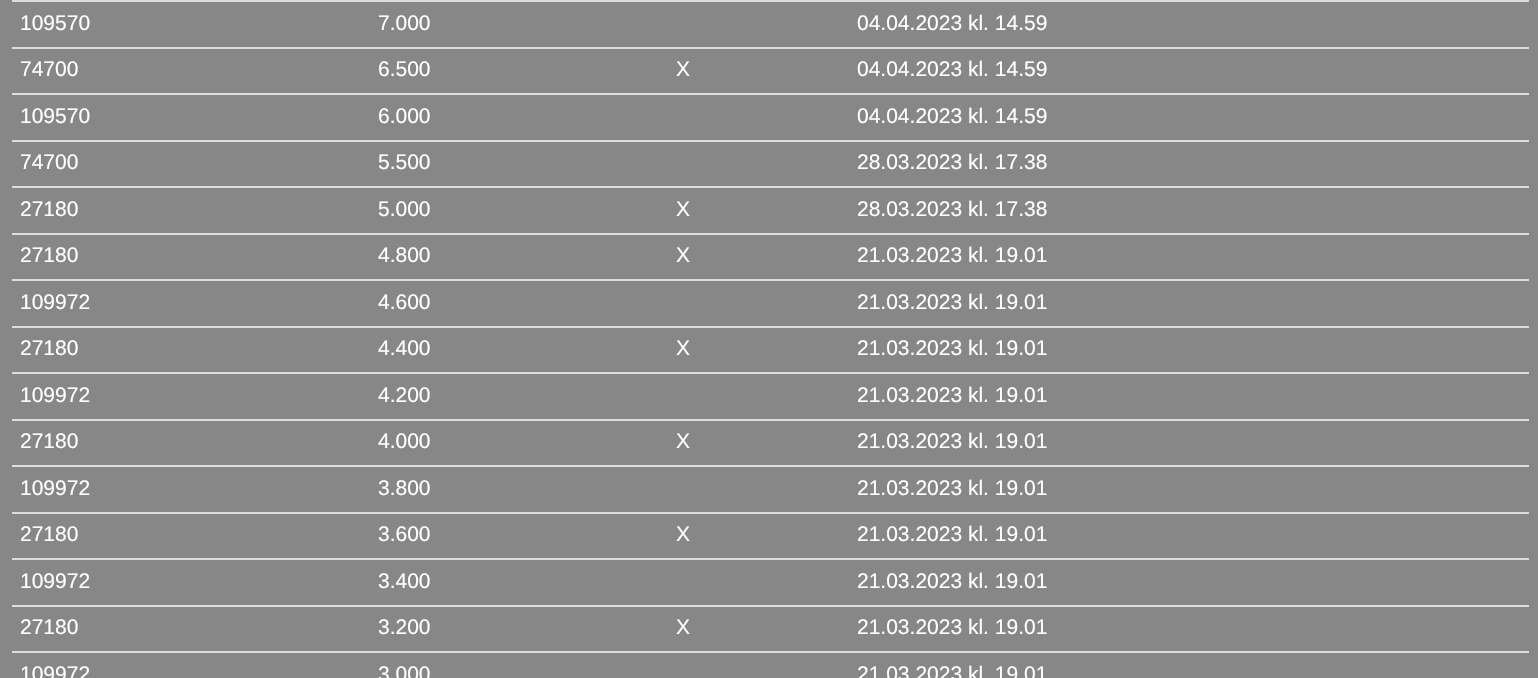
#include "include/core/SkBlurTypes.h"
#include "include/core/SkCanvas.h"
#include "include/core/SkData.h"
#include "include/core/SkFont.h"
#include "include/core/SkFontMgr.h"
#include "include/core/SkImage.h"
#include "include/core/SkMaskFilter.h"
#include "include/core/SkPaint.h"
#include "include/core/SkPathBuilder.h"
#include "include/core/SkTextBlob.h"
#include "include/effects/SkDashPathEffect.h"
#include "include/effects/SkGradientShader.h"
#include "include/utils/SkParsePath.h"

extern sk_sp<SkFontMgr> fontMgr;

void draw(SkCanvas* canvas) {
  SkPaint p;
  p.setAntiAlias(true);
  canvas->clear(SkColorSetRGB(135, 135, 135));
  p.setColor(SkColorSetRGB(221, 221, 221));
  canvas->drawRect(SkRect::MakeLTRB(12, 0, 1529, 2), p);
  canvas->drawRect(SkRect::MakeLTRB(12, 47, 1529, 49), p);
  canvas->drawRect(SkRect::MakeLTRB(12, 93, 1529, 95), p);
  canvas->drawRect(SkRect::MakeLTRB(12, 140, 1529, 142), p);
  canvas->drawRect(SkRect::MakeLTRB(12, 186, 1529, 188), p);
  canvas->drawRect(SkRect::MakeLTRB(12, 233, 1529, 235), p);
  canvas->drawRect(SkRect::MakeLTRB(12, 279, 1529, 281), p);
  canvas->drawRect(SkRect::MakeLTRB(12, 326, 1529, 328), p);
  canvas->drawRect(SkRect::MakeLTRB(12, 372, 1529, 374), p);
  canvas->drawRect(SkRect::MakeLTRB(12, 419, 1529, 421), p);
  canvas->drawRect(SkRect::MakeLTRB(12, 465, 1529, 467), p);
  canvas->drawRect(SkRect::MakeLTRB(12, 512, 1529, 514), p);
  canvas->drawRect(SkRect::MakeLTRB(12, 558, 1529, 560), p);
  canvas->drawRect(SkRect::MakeLTRB(12, 605, 1529, 607), p);
  canvas->drawRect(SkRect::MakeLTRB(12, 651, 1529, 653), p);
  SkFont font1(fontMgr->matchFamilyStyle("Liberation Sans", SkFontStyle::Normal()), 21);
  font1.setSubpixel(true);
  p.setColor(SK_ColorWHITE);
  canvas->drawString("109570", 20, 30, font1, p);
  canvas->drawString("7.000", 378, 30, font1, p);
  canvas->drawString("04.04.2023 kl. 14.59", 857, 30, font1, p);
  canvas->drawString("74700", 20, 76, font1, p);
  canvas->drawString("6.500", 378, 76, font1, p);
  canvas->drawString("X", 676, 76, font1, p);
  canvas->drawString("04.04.2023 kl. 14.59", 857, 76, font1, p);
  canvas->drawString("109570", 20, 123, font1, p);
  canvas->drawString("6.000", 378, 123, font1, p);
  canvas->drawString("04.04.2023 kl. 14.59", 857, 123, font1, p);
  canvas->drawString("74700", 20, 169, font1, p);
  canvas->drawString("5.500", 378, 169, font1, p);
  canvas->drawString("28.03.2023 kl. 17.38", 857, 169, font1, p);
  canvas->drawString("27180", 20, 216, font1, p);
  canvas->drawString("5.000", 378, 216, font1, p);
  canvas->drawString("X", 676, 216, font1, p);
  canvas->drawString("28.03.2023 kl. 17.38", 857, 216, font1, p);
  canvas->drawString("27180", 20, 262, font1, p);
  canvas->drawString("4.800", 378, 262, font1, p);
  canvas->drawString("X", 676, 262, font1, p);
  canvas->drawString("21.03.2023 kl. 19.01", 857, 262, font1, p);
  canvas->drawString("109972", 20, 309, font1, p);
  canvas->drawString("4.600", 378, 309, font1, p);
  canvas->drawString("21.03.2023 kl. 19.01", 857, 309, font1, p);
  canvas->drawString("27180", 20, 355, font1, p);
  canvas->drawString("4.400", 378, 355, font1, p);
  canvas->drawString("X", 676, 355, font1, p);
  canvas->drawString("21.03.2023 kl. 19.01", 857, 355, font1, p);
  canvas->drawString("109972", 20, 402, font1, p);
  canvas->drawString("4.200", 378, 402, font1, p);
  canvas->drawString("21.03.2023 kl. 19.01", 857, 402, font1, p);
  canvas->drawString("27180", 20, 448, font1, p);
  canvas->drawString("4.000", 378, 448, font1, p);
  canvas->drawString("X", 676, 448, font1, p);
  canvas->drawString("21.03.2023 kl. 19.01", 857, 448, font1, p);
  canvas->drawString("109972", 20, 495, font1, p);
  canvas->drawString("3.800", 378, 495, font1, p);
  canvas->drawString("21.03.2023 kl. 19.01", 857, 495, font1, p);
  canvas->drawString("27180", 20, 541, font1, p);
  canvas->drawString("3.600", 378, 541, font1, p);
  canvas->drawString("X", 676, 541, font1, p);
  canvas->drawString("21.03.2023 kl. 19.01", 857, 541, font1, p);
  canvas->drawString("109972", 20, 588, font1, p);
  canvas->drawString("3.400", 378, 588, font1, p);
  canvas->drawString("21.03.2023 kl. 19.01", 857, 588, font1, p);
  canvas->drawString("27180", 20, 634, font1, p);
  canvas->drawString("3.200", 378, 634, font1, p);
  canvas->drawString("X", 676, 634, font1, p);
  canvas->drawString("21.03.2023 kl. 19.01", 857, 634, font1, p);
  canvas->drawString("109972", 20, 681, font1, p);
  canvas->drawString("3.000", 378, 681, font1, p);
  canvas->drawString("21.03.2023 kl. 19.01", 857, 681, font1, p);
}
